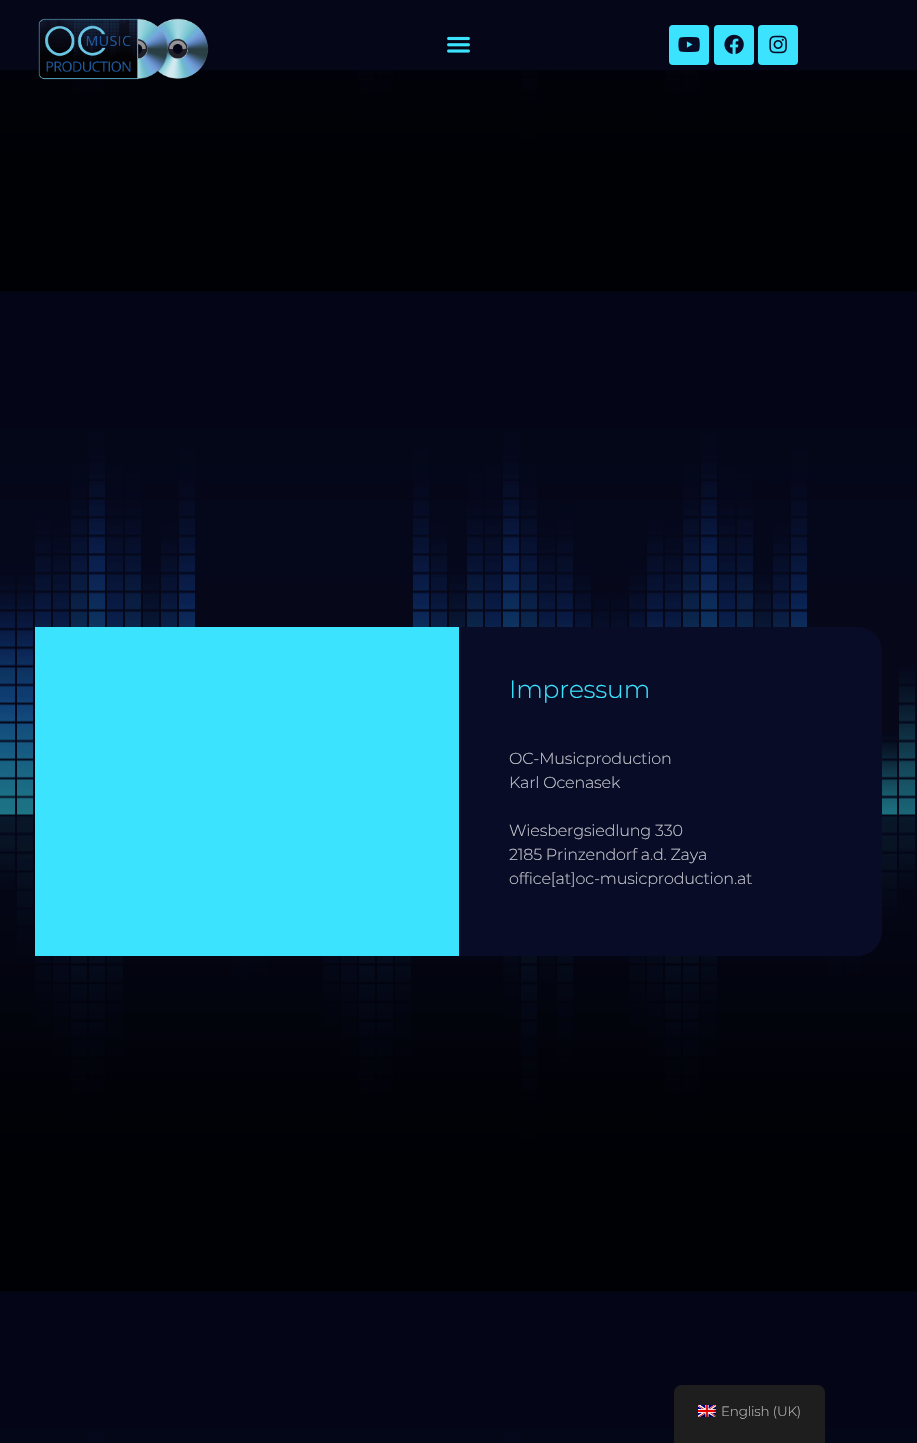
#include "include/core/SkBlurTypes.h"
#include "include/core/SkCanvas.h"
#include "include/core/SkData.h"
#include "include/core/SkFont.h"
#include "include/core/SkFontMgr.h"
#include "include/core/SkImage.h"
#include "include/core/SkMaskFilter.h"
#include "include/core/SkPaint.h"
#include "include/core/SkPathBuilder.h"
#include "include/core/SkTextBlob.h"
#include "include/effects/SkDashPathEffect.h"
#include "include/effects/SkGradientShader.h"
#include "include/utils/SkParsePath.h"

extern sk_sp<SkFontMgr> fontMgr;

void draw(SkCanvas* canvas) {
  SkPaint p;
  p.setAntiAlias(true);
  auto spacedText = [&](const char* s, float x, float y, const SkFont& font, const SkPaint& ink, float letter, float word) {
    std::vector<SkGlyphID> glyphs(font.countText(s, strlen(s), SkTextEncoding::kUTF8));
    std::vector<float> xs(glyphs.size());
    font.textToGlyphs(s, strlen(s), SkTextEncoding::kUTF8, glyphs);
    font.getXPos(glyphs, xs, x);
    float extra = 0;
    for (size_t i = 0; i < glyphs.size(); i++) {
      xs[i] += extra;
      extra += letter + word * (glyphs[i] == font.unicharToGlyph(' '));
    }
    canvas->drawTextBlob(SkTextBlob::MakeFromPosHGlyphs(glyphs, xs, y, font), 0, 0, ink);
  };
  canvas->clear(SK_ColorWHITE);
  p.setColor(SkColorSetRGB(5, 7, 24));
  canvas->drawRect(SkRect::MakeLTRB(0, 0, 917, 70), p);
  canvas->drawImageRect(SkImages::DeferredFromEncodedData(SkData::MakeFromFileName("images/6.png")), SkRect::MakeLTRB(0, 70, 917, 1443), SkSamplingOptions());
  canvas->drawImageRect(SkImages::DeferredFromEncodedData(SkData::MakeFromFileName("images/1.png")), SkRect::MakeLTRB(38, 18, 209, 80), SkSamplingOptions());
  canvas->drawImageRect(SkImages::DeferredFromEncodedData(SkData::MakeFromFileName("images/2.png")), SkRect::MakeLTRB(447, 36, 470, 53), SkSamplingOptions());
  p.setColor(SkColorSetRGB(59, 227, 254));
  canvas->drawRoundRect(SkRect::MakeLTRB(669, 25, 709, 65), 4, 4, p);
  canvas->drawImageRect(SkImages::DeferredFromEncodedData(SkData::MakeFromFileName("images/3.png")), SkRect::MakeLTRB(678, 37, 700, 52), SkSamplingOptions());
  canvas->drawRoundRect(SkRect::MakeLTRB(714, 25, 754, 65), 4, 4, p);
  canvas->drawImageRect(SkImages::DeferredFromEncodedData(SkData::MakeFromFileName("images/4.png")), SkRect::MakeLTRB(724, 34, 744, 54), SkSamplingOptions());
  canvas->drawRoundRect(SkRect::MakeLTRB(758, 25, 798, 65), 4, 4, p);
  canvas->drawImageRect(SkImages::DeferredFromEncodedData(SkData::MakeFromFileName("images/5.png")), SkRect::MakeLTRB(769, 35, 787, 54), SkSamplingOptions());
  p.setColor(SkColorSetRGB(8, 12, 39));
  canvas->drawRoundRect(SkRect::MakeLTRB(35, 627, 882, 956), 25, 25, p);
  p.setColor(SkColorSetRGB(59, 227, 254));
  canvas->drawRect(SkRect::MakeLTRB(35, 627, 459, 956), p);
  p.setColor(SkColorSetRGB(30, 30, 30));
  canvas->drawPath(SkPathBuilder().moveTo(682, 1385).lineTo(817, 1385).cubicTo(821.5f, 1385, 825, 1388.5f, 825, 1393).lineTo(825, 1443).lineTo(674, 1443).lineTo(674, 1393).cubicTo(674, 1388.5f, 677.5f, 1385, 682, 1385).close().detach(), p);
  canvas->drawImageRect(SkImages::DeferredFromEncodedData(SkData::MakeFromFileName("images/7.png")), SkRect::MakeLTRB(698, 1405, 716, 1417), SkSamplingOptions());
  SkFont font1(fontMgr->matchFamilyStyle("Montserrat", SkFontStyle(100, SkFontStyle::kNormal_Width, SkFontStyle::kUpright_Slant)), 25);
  font1.setSubpixel(true);
  p.setColor(SkColorSetRGB(59, 227, 254));
  spacedText("Impressum", 509, 698, font1, p, -0.2f, 0);
  SkFont font2(fontMgr->matchFamilyStyle("Montserrat", SkFontStyle(100, SkFontStyle::kNormal_Width, SkFontStyle::kUpright_Slant)), 16);
  font2.setSubpixel(true);
  p.setColor(SkColorSetRGB(198, 199, 205));
  spacedText("OC-Musicproduction", 509, 764, font2, p, -0.2f, 0);
  spacedText("Karl Ocenasek", 509, 788, font2, p, -0.2f, 0);
  spacedText("Wiesbergsiedlung 330", 509, 836, font2, p, -0.2f, 0);
  spacedText("2185 Prinzendorf a.d. Zaya", 509, 860, font2, p, -0.2f, 0);
  spacedText("office[at]oc-musicproduction.at", 509, 884, font2, p, -0.2f, 0);
  SkFont font3(fontMgr->matchFamilyStyle("Montserrat", SkFontStyle(100, SkFontStyle::kNormal_Width, SkFontStyle::kUpright_Slant)), 13.5f);
  font3.setSubpixel(true);
  p.setColor(SkColorSetRGB(189, 189, 189));
  spacedText("English (UK)", 721, 1416, font3, p, -0.2f, 0);
}
